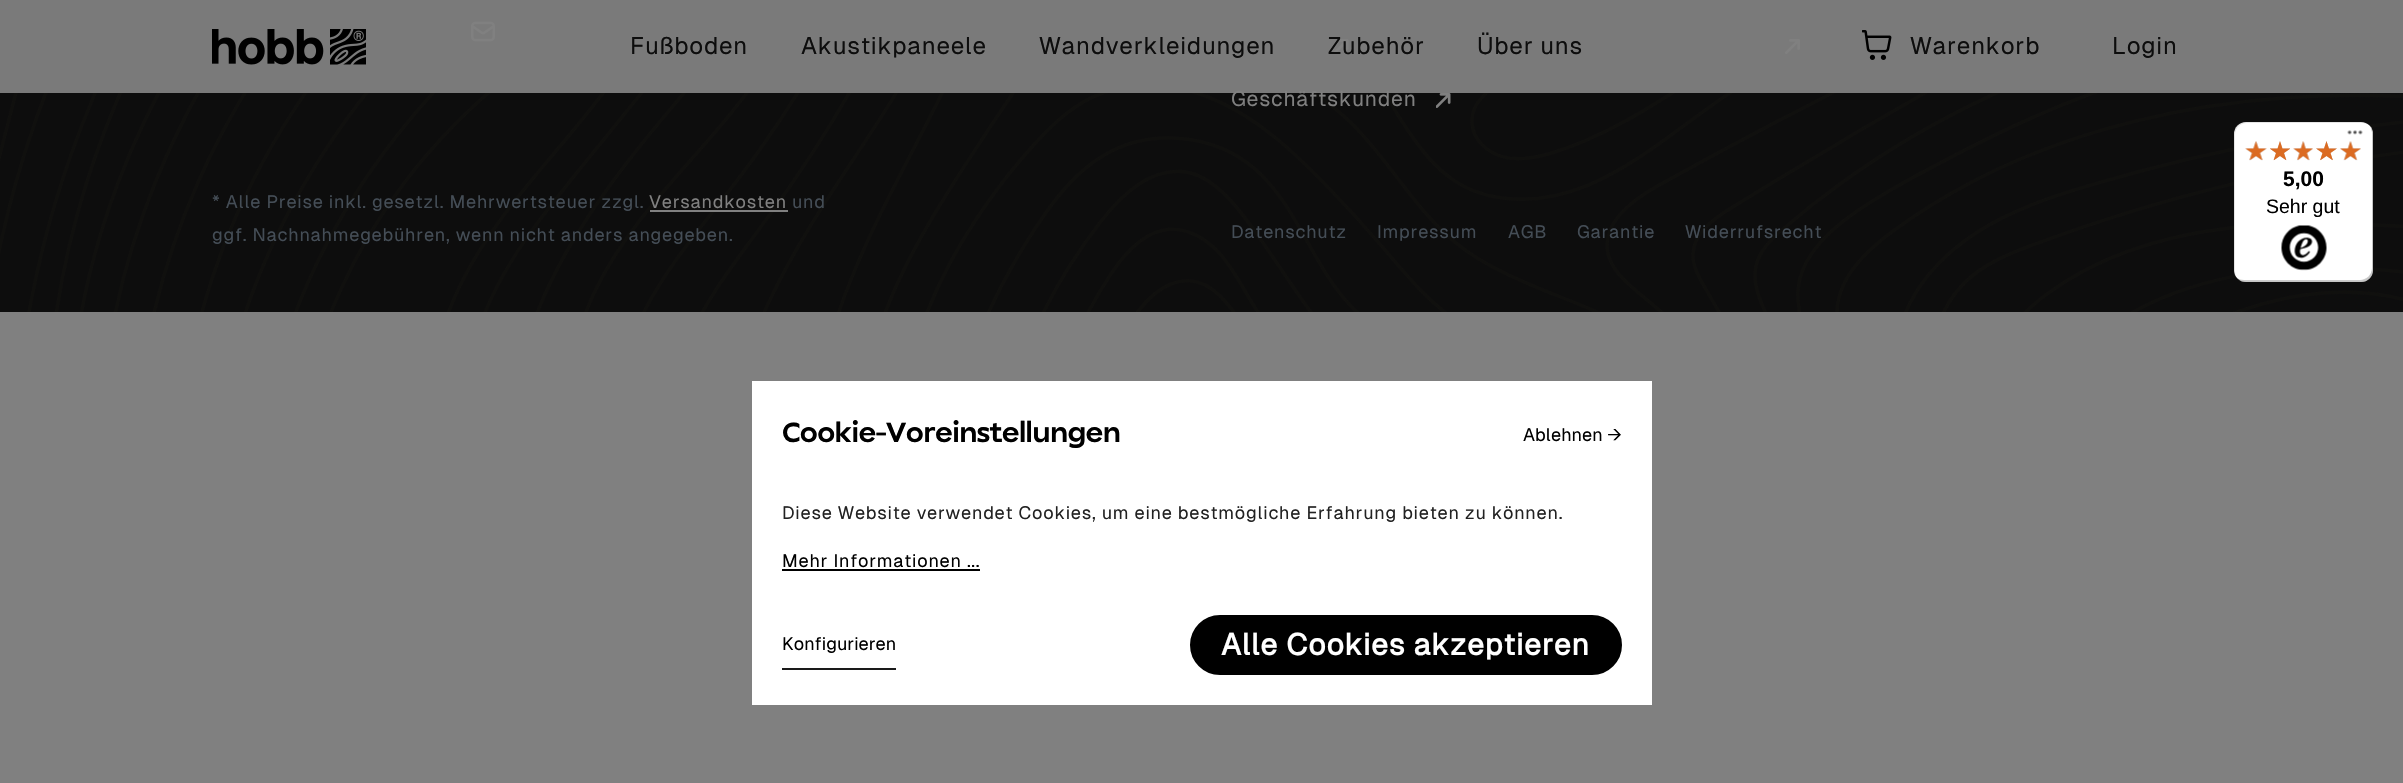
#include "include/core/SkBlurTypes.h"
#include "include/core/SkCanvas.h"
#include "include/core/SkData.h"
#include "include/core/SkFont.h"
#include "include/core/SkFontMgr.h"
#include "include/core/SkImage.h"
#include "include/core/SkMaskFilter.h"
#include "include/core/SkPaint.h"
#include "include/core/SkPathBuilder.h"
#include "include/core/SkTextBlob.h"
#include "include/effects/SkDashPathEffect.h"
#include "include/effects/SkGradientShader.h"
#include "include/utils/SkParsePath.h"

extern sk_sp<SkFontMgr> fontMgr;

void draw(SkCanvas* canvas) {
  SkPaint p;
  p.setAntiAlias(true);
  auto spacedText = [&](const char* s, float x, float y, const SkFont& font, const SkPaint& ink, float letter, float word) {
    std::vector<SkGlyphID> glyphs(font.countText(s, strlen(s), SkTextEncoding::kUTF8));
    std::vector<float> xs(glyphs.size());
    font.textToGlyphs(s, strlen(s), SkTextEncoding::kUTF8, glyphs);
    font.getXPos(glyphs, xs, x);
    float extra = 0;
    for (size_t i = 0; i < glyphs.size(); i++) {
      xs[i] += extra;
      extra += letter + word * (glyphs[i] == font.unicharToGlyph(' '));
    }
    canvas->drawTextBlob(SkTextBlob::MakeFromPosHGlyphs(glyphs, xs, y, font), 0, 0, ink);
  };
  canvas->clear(SkColorSetRGB(128, 128, 128));
  p.setColor(SkColorSetRGB(13, 13, 13));
  canvas->drawRect(SkRect::MakeLTRB(0, 0, 2403, 312), p);
  canvas->drawImageRect(SkImages::DeferredFromEncodedData(SkData::MakeFromFileName("images/4.png")), SkRect::MakeLTRB(0, 0, 2403, 312), SkSamplingOptions());
  canvas->drawImageRect(SkImages::DeferredFromEncodedData(SkData::MakeFromFileName("images/5.png")), SkRect::MakeLTRB(471, 21, 495, 42), SkSamplingOptions());
  canvas->drawImageRect(SkImages::DeferredFromEncodedData(SkData::MakeFromFileName("images/6.png")), SkRect::MakeLTRB(1785, 39, 1800, 54), SkSamplingOptions());
  canvas->drawImageRect(SkImages::DeferredFromEncodedData(SkData::MakeFromFileName("images/7.png")), SkRect::MakeLTRB(1334, 39, 1349, 54), SkSamplingOptions());
  canvas->drawImageRect(SkImages::DeferredFromEncodedData(SkData::MakeFromFileName("images/7.png")), SkRect::MakeLTRB(1436, 93, 1451, 108), SkSamplingOptions());
  p.setColor(SkColorSetRGB(128, 128, 128));
  canvas->drawRect(SkRect::MakeLTRB(650, 210, 788, 212), p);
  p.setColor(SK_ColorWHITE);
  canvas->drawRoundRect(SkRect::MakeLTRB(2234, 122, 2373, 282), 12, 12, p);
  p.setColor(SkColorSetARGB(26, 0, 0, 0));
  canvas->drawPath(SkPathBuilder().moveTo(2247, 123).lineTo(2362, 123).cubicTo(2365, 123, 2367, 124, 2369, 125).cubicTo(2367, 123, 2364, 122, 2361, 122).lineTo(2246, 122).cubicTo(2239, 122, 2234, 127, 2234, 134).lineTo(2234, 270).cubicTo(2234, 272, 2235, 275, 2236, 277).lineTo(2235, 272).lineTo(2235, 135).cubicTo(2235, 128, 2240, 123, 2247, 123).close().detach(), p);
  p.setColor(SkColorSetARGB(51, 0, 0, 0));
  canvas->drawPath(SkPathBuilder().moveTo(2237, 278).cubicTo(2239, 280, 2242, 282, 2246, 282).lineTo(2361, 282).cubicTo(2368, 282, 2373, 277, 2373, 270).lineTo(2373, 134).cubicTo(2373, 132, 2372, 129, 2371, 128).lineTo(2372, 132).lineTo(2372, 268).cubicTo(2372, 275, 2366, 280, 2360, 280).lineTo(2244, 280).cubicTo(2241, 280, 2239, 279, 2237, 278).close().detach(), p);
  p.setColor(SkColorSetARGB(51, 50, 50, 50));
  canvas->drawPath(SkPathBuilder().moveTo(2238, 279).cubicTo(2240, 281, 2243, 282, 2246, 282).lineTo(2361, 282).cubicTo(2368, 282, 2373, 277, 2373, 270).lineTo(2373, 134).cubicTo(2373, 131, 2372, 128, 2370, 126).cubicTo(2371, 128, 2372, 130, 2372, 133).lineTo(2372, 269).cubicTo(2372, 276, 2367, 281, 2360, 281).lineTo(2245, 281).cubicTo(2242, 281, 2240, 280, 2238, 279).close().detach(), p);
  p.setColor(SkColorSetARGB(77, 255, 255, 255));
  canvas->drawPath(SkPathBuilder().moveTo(2238, 279).cubicTo(2240, 281, 2243, 282, 2246, 282).lineTo(2361, 282).cubicTo(2368, 282, 2373, 277, 2373, 270).lineTo(2373, 134).cubicTo(2373, 131, 2372, 128, 2370, 126).cubicTo(2371, 128, 2372, 130, 2372, 133).lineTo(2372, 269).cubicTo(2372, 276, 2367, 281, 2360, 281).lineTo(2245, 281).cubicTo(2242, 281, 2240, 280, 2238, 279).close().detach(), p);
  canvas->drawImageRect(SkImages::DeferredFromEncodedData(SkData::MakeFromFileName("images/8.png")), SkRect::MakeLTRB(2347, 130, 2363, 135), SkSamplingOptions());
  canvas->drawImageRect(SkImages::DeferredFromEncodedData(SkData::MakeFromFileName("images/9.png")), SkRect::MakeLTRB(2245, 141, 2267, 161), SkSamplingOptions());
  canvas->drawImageRect(SkImages::DeferredFromEncodedData(SkData::MakeFromFileName("images/10.png")), SkRect::MakeLTRB(2270, 141, 2290, 160), SkSamplingOptions());
  canvas->drawImageRect(SkImages::DeferredFromEncodedData(SkData::MakeFromFileName("images/11.png")), SkRect::MakeLTRB(2293, 141, 2313, 161), SkSamplingOptions());
  canvas->drawImageRect(SkImages::DeferredFromEncodedData(SkData::MakeFromFileName("images/12.png")), SkRect::MakeLTRB(2316, 141, 2337, 160), SkSamplingOptions());
  canvas->drawImageRect(SkImages::DeferredFromEncodedData(SkData::MakeFromFileName("images/13.png")), SkRect::MakeLTRB(2340, 141, 2361, 161), SkSamplingOptions());
  canvas->drawImageRect(SkImages::DeferredFromEncodedData(SkData::MakeFromFileName("images/14.png")), SkRect::MakeLTRB(2245, 141, 2267, 160), SkSamplingOptions());
  canvas->drawImageRect(SkImages::DeferredFromEncodedData(SkData::MakeFromFileName("images/15.png")), SkRect::MakeLTRB(2270, 141, 2290, 161), SkSamplingOptions());
  canvas->drawImageRect(SkImages::DeferredFromEncodedData(SkData::MakeFromFileName("images/16.png")), SkRect::MakeLTRB(2293, 141, 2313, 160), SkSamplingOptions());
  canvas->drawImageRect(SkImages::DeferredFromEncodedData(SkData::MakeFromFileName("images/17.png")), SkRect::MakeLTRB(2316, 141, 2337, 161), SkSamplingOptions());
  canvas->drawImageRect(SkImages::DeferredFromEncodedData(SkData::MakeFromFileName("images/18.png")), SkRect::MakeLTRB(2340, 141, 2361, 160), SkSamplingOptions());
  canvas->drawImageRect(SkImages::DeferredFromEncodedData(SkData::MakeFromFileName("images/19.png")), SkRect::MakeLTRB(2281, 225, 2327, 271), SkSamplingOptions());
  p.setColor(SK_ColorWHITE);
  canvas->drawRect(SkRect::MakeLTRB(752, 381, 1652, 705), p);
  p.setColor(SK_ColorBLACK);
  canvas->drawRect(SkRect::MakeLTRB(782, 569, 980, 571), p);
  p.setColor(SkColorSetRGB(26, 26, 26));
  canvas->drawRect(SkRect::MakeLTRB(782, 668, 896, 670), p);
  p.setColor(SK_ColorBLACK);
  canvas->drawRoundRect(SkRect::MakeLTRB(1191, 616, 1621, 674), 29, 29, p);
  p.setStyle(SkPaint::kStroke_Style);
  p.setStrokeWidth(2);
  canvas->drawRoundRect(SkRect::MakeLTRB(1191, 616, 1621, 674), 29, 29, p);
  SkFont font1(fontMgr->matchFamilyStyle("Geist", SkFontStyle::Normal()), 21);
  font1.setSubpixel(true);
  p.setStyle(SkPaint::kFill_Style);
  p.setColor(SkColorSetRGB(128, 128, 128));
  spacedText("Geschäftskunden", 1231, 106, font1, p, 0.72f, 0);
  p.setColor(SkColorSetARGB(242, 128, 128, 128));
  canvas->drawRect(SkRect::MakeLTRB(0, 0, 2403, 93), p);
  SkFont font2(fontMgr->matchFamilyStyle("Geist", SkFontStyle::Normal()), 24);
  font2.setSubpixel(true);
  p.setColor(SkColorSetRGB(13, 13, 13));
  spacedText("Login", 2112, 54, font2, p, 0.72f, 0);
  canvas->drawImageRect(SkImages::DeferredFromEncodedData(SkData::MakeFromFileName("images/3.png")), SkRect::MakeLTRB(1862, 30, 1892, 60), SkSamplingOptions());
  spacedText("Warenkorb", 1910, 54, font2, p, 0.72f, 0);
  canvas->drawImageRect(SkImages::DeferredFromEncodedData(SkData::MakeFromFileName("images/2.png")), SkRect::MakeLTRB(330, 29, 366, 65), SkSamplingOptions());
  canvas->drawImageRect(SkImages::DeferredFromEncodedData(SkData::MakeFromFileName("images/1.png")), SkRect::MakeLTRB(212, 29, 324, 65), SkSamplingOptions());
  spacedText("Über uns", 1477, 54, font2, p, 0.72f, 0);
  spacedText("Zubehör", 1328, 54, font2, p, 0.72f, 0);
  spacedText("Wandverkleidungen", 1039, 54, font2, p, 0.72f, 0);
  spacedText("Akustikpaneele", 801, 54, font2, p, 0.72f, 0);
  spacedText("Fußboden", 630, 54, font2, p, 0.72f, 0);
  SkFont font3(fontMgr->matchFamilyStyle("Geist", SkFontStyle::Normal()), 18);
  font3.setSubpixel(true);
  p.setColor(SkColorSetRGB(68, 77, 86));
  spacedText("* Alle Preise inkl. gesetzl. Mehrwertsteuer zzgl.", 212, 208, font3, p, 0.72f, 0);
  p.setColor(SkColorSetRGB(128, 128, 128));
  spacedText("Versandkosten", 649, 208, font3, p, 0.72f, 0);
  p.setColor(SkColorSetRGB(68, 77, 86));
  spacedText("und", 792, 208, font3, p, 0.72f, 0);
  spacedText("ggf. Nachnahmegebühren, wenn nicht anders angegeben.", 212, 241, font3, p, 0.72f, 0);
  spacedText("Datenschutz", 1231, 238, font3, p, 0.72f, 0);
  spacedText("Impressum", 1377, 238, font3, p, 0.72f, 0);
  spacedText("AGB", 1508, 238, font3, p, 0.72f, 0);
  spacedText("Garantie", 1577, 238, font3, p, 0.72f, 0);
  spacedText("Widerrufsrecht", 1685, 238, font3, p, 0.72f, 0);
  SkFont font4(fontMgr->matchFamilyStyle("Liberation Sans", SkFontStyle::Bold()), 21);
  font4.setSubpixel(true);
  p.setColor(SK_ColorBLACK);
  canvas->drawString("5,00", 2283, 186, font4, p);
  SkFont font5(fontMgr->matchFamilyStyle("Liberation Sans", SkFontStyle::Normal()), 19.5f);
  font5.setSubpixel(true);
  canvas->drawString("Sehr gut", 2266, 213, font5, p);
  SkFont font6(fontMgr->matchFamilyStyle("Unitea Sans", SkFontStyle(600, SkFontStyle::kNormal_Width, SkFontStyle::kUpright_Slant)), 30);
  font6.setSubpixel(true);
  spacedText("Cookie-Voreinstellungen", 782, 442, font6, p, -0.6f, 0);
  canvas->drawString("Ablehnen →", 1523, 441, font3, p);
  p.setColor(SkColorSetRGB(34, 34, 34));
  spacedText("Diese Website verwendet Cookies, um eine bestmögliche Erfahrung bieten zu können.", 782, 519, font3, p, 0.72f, 0);
  p.setColor(SK_ColorBLACK);
  spacedText("Mehr Informationen ...", 782, 567, font3, p, 0.72f, 0);
  canvas->drawString("Konfigurieren", 782, 650, font3, p);
  SkFont font7(fontMgr->matchFamilyStyle("Geist", SkFontStyle::Bold()), 30);
  font7.setSubpixel(true);
  p.setColor(SK_ColorWHITE);
  spacedText("Alle Cookies akzeptieren", 1221, 655, font7, p, 0.72f, 0);
}
